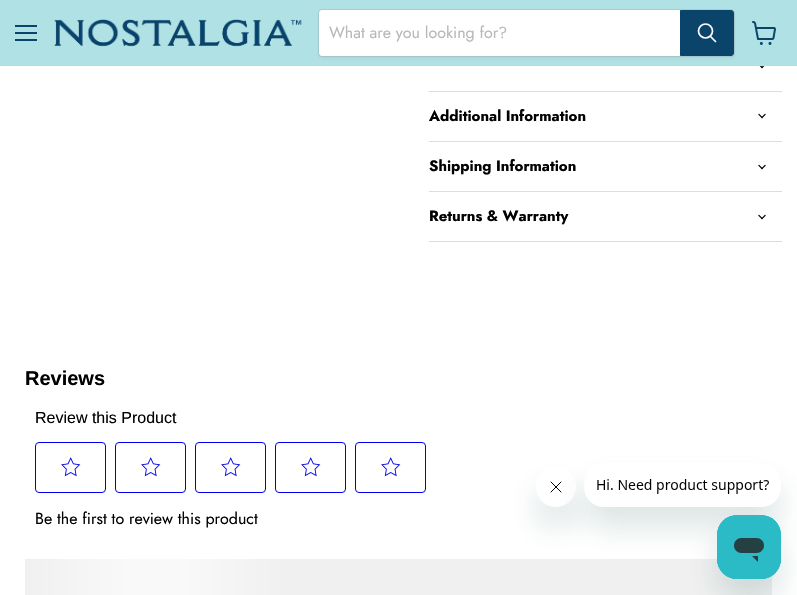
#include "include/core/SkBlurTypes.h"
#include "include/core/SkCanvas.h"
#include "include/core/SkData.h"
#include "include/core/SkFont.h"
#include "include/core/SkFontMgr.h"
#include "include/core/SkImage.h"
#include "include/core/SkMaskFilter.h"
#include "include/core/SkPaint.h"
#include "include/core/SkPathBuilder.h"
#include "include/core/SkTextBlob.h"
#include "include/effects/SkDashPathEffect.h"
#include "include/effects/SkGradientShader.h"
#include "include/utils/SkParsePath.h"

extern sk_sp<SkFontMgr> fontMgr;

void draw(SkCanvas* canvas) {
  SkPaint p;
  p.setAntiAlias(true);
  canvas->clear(SK_ColorWHITE);
  p.setColor(SkColorSetRGB(176, 226, 229));
  canvas->drawRect(SkRect::MakeLTRB(0, 0, 797, 66), p);
  p.setColor(SkColorSetRGB(10, 68, 107));
  canvas->drawRect(SkRect::MakeLTRB(15, 25, 37, 27), p);
  canvas->drawRect(SkRect::MakeLTRB(15, 32, 37, 34), p);
  canvas->drawRect(SkRect::MakeLTRB(15, 39, 37, 41), p);
  canvas->drawImageRect(SkImages::DeferredFromEncodedData(SkData::MakeFromFileName("images/1.png")), SkRect::MakeLTRB(54, 19, 302, 47), SkSamplingOptions());
  p.setColor(SkColorSetARGB(28, 128, 128, 128));
  p.setMaskFilter(SkMaskFilter::MakeBlur(kNormal_SkBlurStyle, 1.5f));
  canvas->drawRoundRect(SkRect::MakeLTRB(318, 11, 735, 59), 4, 4, p);
  p.setMaskFilter(nullptr);
  p.setStyle(SkPaint::kStroke_Style);
  p.setStrokeWidth(1);
  p.setColor(SkColorSetARGB(51, 128, 128, 128));
  canvas->drawRoundRect(SkRect::MakeLTRB(318.5f, 9.5f, 734.5f, 56.5f), 3.5f, 3.5f, p);
  p.setStyle(SkPaint::kFill_Style);
  p.setColor(SK_ColorWHITE);
  canvas->drawPath(SkPathBuilder().moveTo(322, 10).lineTo(680, 10).lineTo(680, 56).lineTo(322, 56).cubicTo(320.5f, 56, 319, 54.5f, 319, 53).lineTo(319, 13).cubicTo(319, 11.5f, 320.5f, 10, 322, 10).close().detach(), p);
  p.setColor(SkColorSetRGB(10, 68, 107));
  canvas->drawPath(SkPathBuilder().moveTo(680.5f, 10.5f).lineTo(731, 10.5f).cubicTo(732.5f, 10.5f, 733.5f, 11.5f, 733.5f, 13).lineTo(733.5f, 53).cubicTo(733.5f, 54.5f, 732.5f, 55.5f, 731, 55.5f).lineTo(680.5f, 55.5f).close().detach(), p);
  p.setStyle(SkPaint::kStroke_Style);
  canvas->drawPath(SkPathBuilder().moveTo(680.5f, 10.5f).lineTo(731, 10.5f).cubicTo(732.5f, 10.5f, 733.5f, 11.5f, 733.5f, 13).lineTo(733.5f, 53).cubicTo(733.5f, 54.5f, 732.5f, 55.5f, 731, 55.5f).lineTo(680.5f, 55.5f).close().detach(), p);
  p.setStrokeWidth(1.7f);
  p.setStrokeCap(SkPaint::kRound_Cap);
  p.setColor(SK_ColorWHITE);
  canvas->drawPath(SkPathBuilder().moveTo(715.5f, 41.5f).lineTo(710.5f, 36.5f).detach(), p);
  p.setStrokeCap(SkPaint::kButt_Cap);
  canvas->drawCircle(705.5f, 31, 7, p);
  canvas->drawImageRect(SkImages::DeferredFromEncodedData(SkData::MakeFromFileName("images/2.png")), SkRect::MakeLTRB(752, 21, 776, 45), SkSamplingOptions());
  p.setStyle(SkPaint::kFill_Style);
  p.setColor(SkColorSetRGB(221, 221, 221));
  canvas->drawRect(SkRect::MakeLTRB(429, 91, 782, 92), p);
  canvas->drawImageRect(SkImages::DeferredFromEncodedData(SkData::MakeFromFileName("images/3.png")), SkRect::MakeLTRB(759, 66, 765, 69), SkSamplingOptions());
  canvas->drawRect(SkRect::MakeLTRB(429, 141, 782, 142), p);
  canvas->drawImageRect(SkImages::DeferredFromEncodedData(SkData::MakeFromFileName("images/4.png")), SkRect::MakeLTRB(758, 113, 766, 119), SkSamplingOptions());
  canvas->drawRect(SkRect::MakeLTRB(429, 191, 782, 192), p);
  canvas->drawImageRect(SkImages::DeferredFromEncodedData(SkData::MakeFromFileName("images/4.png")), SkRect::MakeLTRB(758, 164, 766, 170), SkSamplingOptions());
  canvas->drawRect(SkRect::MakeLTRB(429, 241, 782, 242), p);
  canvas->drawImageRect(SkImages::DeferredFromEncodedData(SkData::MakeFromFileName("images/4.png")), SkRect::MakeLTRB(758, 214, 766, 220), SkSamplingOptions());
  p.setStyle(SkPaint::kStroke_Style);
  p.setStrokeWidth(1);
  p.setColor(SkColorSetRGB(0, 0, 238));
  canvas->drawRoundRect(SkRect::MakeLTRB(35.5f, 442.5f, 105.5f, 492.5f), 3.5f, 3.5f, p);
  canvas->drawImageRect(SkImages::DeferredFromEncodedData(SkData::MakeFromFileName("images/5.png")), SkRect::MakeLTRB(61, 457, 81, 477), SkSamplingOptions());
  canvas->drawRoundRect(SkRect::MakeLTRB(115.5f, 442.5f, 185.5f, 492.5f), 3.5f, 3.5f, p);
  canvas->drawImageRect(SkImages::DeferredFromEncodedData(SkData::MakeFromFileName("images/5.png")), SkRect::MakeLTRB(141, 457, 161, 477), SkSamplingOptions());
  canvas->drawRoundRect(SkRect::MakeLTRB(195.5f, 442.5f, 265.5f, 492.5f), 3.5f, 3.5f, p);
  canvas->drawImageRect(SkImages::DeferredFromEncodedData(SkData::MakeFromFileName("images/5.png")), SkRect::MakeLTRB(221, 457, 241, 477), SkSamplingOptions());
  canvas->drawRoundRect(SkRect::MakeLTRB(275.5f, 442.5f, 345.5f, 492.5f), 3.5f, 3.5f, p);
  canvas->drawImageRect(SkImages::DeferredFromEncodedData(SkData::MakeFromFileName("images/5.png")), SkRect::MakeLTRB(301, 457, 321, 477), SkSamplingOptions());
  canvas->drawRoundRect(SkRect::MakeLTRB(355.5f, 442.5f, 425.5f, 492.5f), 3.5f, 3.5f, p);
  canvas->drawImageRect(SkImages::DeferredFromEncodedData(SkData::MakeFromFileName("images/5.png")), SkRect::MakeLTRB(381, 457, 401, 477), SkSamplingOptions());
  p.setStyle(SkPaint::kFill_Style);
  p.setColor(SkColorSetRGB(240, 240, 240));
  canvas->drawRect(SkRect::MakeLTRB(25, 559, 772, 595), p);
  {
    const SkColor colors[] = {SkColorSetRGB(240, 240, 240), SkColorSetRGB(249, 249, 249), SkColorSetRGB(249, 249, 249), SkColorSetRGB(240, 240, 240)};
    const float stops[] = {0, 0.4f, 0.6f, 1};
    const SkPoint ends[] = {{25, 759}, {286, 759}};
    p.setShader(SkGradientShader::MakeLinear(ends, colors, stops, 4, SkTileMode::kClamp));
    p.setAlpha(255);
  }
  canvas->drawPath(SkPathBuilder().moveTo(30, 559).lineTo(286, 559).lineTo(286, 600).lineTo(30, 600).cubicTo(27, 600, 25, 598, 25, 595).lineTo(25, 564).cubicTo(25, 561, 27, 559, 30, 559).close().detach(), p);
  canvas->save();
  canvas->clipPath(SkPathBuilder(SkPathFillType::kEvenOdd).moveTo(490, 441).lineTo(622, 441).lineTo(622, 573).lineTo(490, 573).close().moveTo(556, 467).cubicTo(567, 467, 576, 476, 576, 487).cubicTo(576, 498, 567, 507, 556, 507).cubicTo(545, 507, 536, 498, 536, 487).cubicTo(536, 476, 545, 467, 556, 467).close().detach(), true);
  p.setShader(nullptr);
  p.setColor(SkColorSetARGB(38, 23, 73, 77));
  p.setMaskFilter(SkMaskFilter::MakeBlur(kNormal_SkBlurStyle, 15));
  canvas->drawRoundRect(SkRect::MakeLTRB(536, 487, 576, 527), 20, 20, p);
  p.setMaskFilter(nullptr);
  canvas->restore();
  canvas->drawImageRect(SkImages::DeferredFromEncodedData(SkData::MakeFromFileName("images/7.png")), SkRect::MakeLTRB(550, 481, 562, 493), SkSamplingOptions());
  canvas->save();
  canvas->clipPath(SkPathBuilder(SkPathFillType::kEvenOdd).moveTo(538, 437).lineTo(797, 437).lineTo(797, 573).lineTo(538, 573).close().moveTo(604, 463).lineTo(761, 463).cubicTo(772, 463, 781, 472, 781, 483).lineTo(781, 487).cubicTo(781, 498, 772, 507, 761, 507).lineTo(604, 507).cubicTo(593, 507, 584, 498, 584, 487).lineTo(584, 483).cubicTo(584, 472, 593, 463, 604, 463).close().detach(), true);
  p.setMaskFilter(SkMaskFilter::MakeBlur(kNormal_SkBlurStyle, 15));
  canvas->drawRoundRect(SkRect::MakeLTRB(584, 483, 781, 527), 20, 20, p);
  p.setMaskFilter(nullptr);
  canvas->restore();
  canvas->drawImageRect(SkImages::DeferredFromEncodedData(SkData::MakeFromFileName("images/6.png")), SkRect::MakeLTRB(585, 479, 775, 507), SkSamplingOptions());
  p.setMaskFilter(SkMaskFilter::MakeBlur(kNormal_SkBlurStyle, 15));
  canvas->drawRoundRect(SkRect::MakeLTRB(717, 535, 781, 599), 20, 20, p);
  p.setMaskFilter(nullptr);
  canvas->drawImageRect(SkImages::DeferredFromEncodedData(SkData::MakeFromFileName("images/8.png")), SkRect::MakeLTRB(717, 515, 781, 579), SkSamplingOptions());
  SkFont font1(fontMgr->matchFamilyStyle("Jost", SkFontStyle::Normal()), 16);
  font1.setSubpixel(true);
  p.setColor(SkColorSetRGB(184, 184, 184));
  canvas->drawString("What are you looking for?", 329, 38, font1, p);
  SkFont font2(fontMgr->matchFamilyStyle("Jost", SkFontStyle::Bold()), 15);
  font2.setSubpixel(true);
  p.setColor(SkColorSetRGB(1, 1, 1));
  canvas->drawString("Additional Information", 429, 121, font2, p);
  canvas->drawString("Shipping Information", 429, 171, font2, p);
  canvas->drawString("Returns & Warranty", 429, 221, font2, p);
  SkFont font3(fontMgr->matchFamilyStyle("Liberation Sans", SkFontStyle::Bold()), 20);
  font3.setSubpixel(true);
  canvas->drawString("Reviews", 25, 385, font3, p);
  SkFont font4(fontMgr->matchFamilyStyle("Liberation Sans", SkFontStyle::Normal()), 16);
  font4.setSubpixel(true);
  canvas->drawString("Review this Product", 35, 423, font4, p);
  canvas->drawString("Be the first to review this product", 35, 524, font1, p);
}
